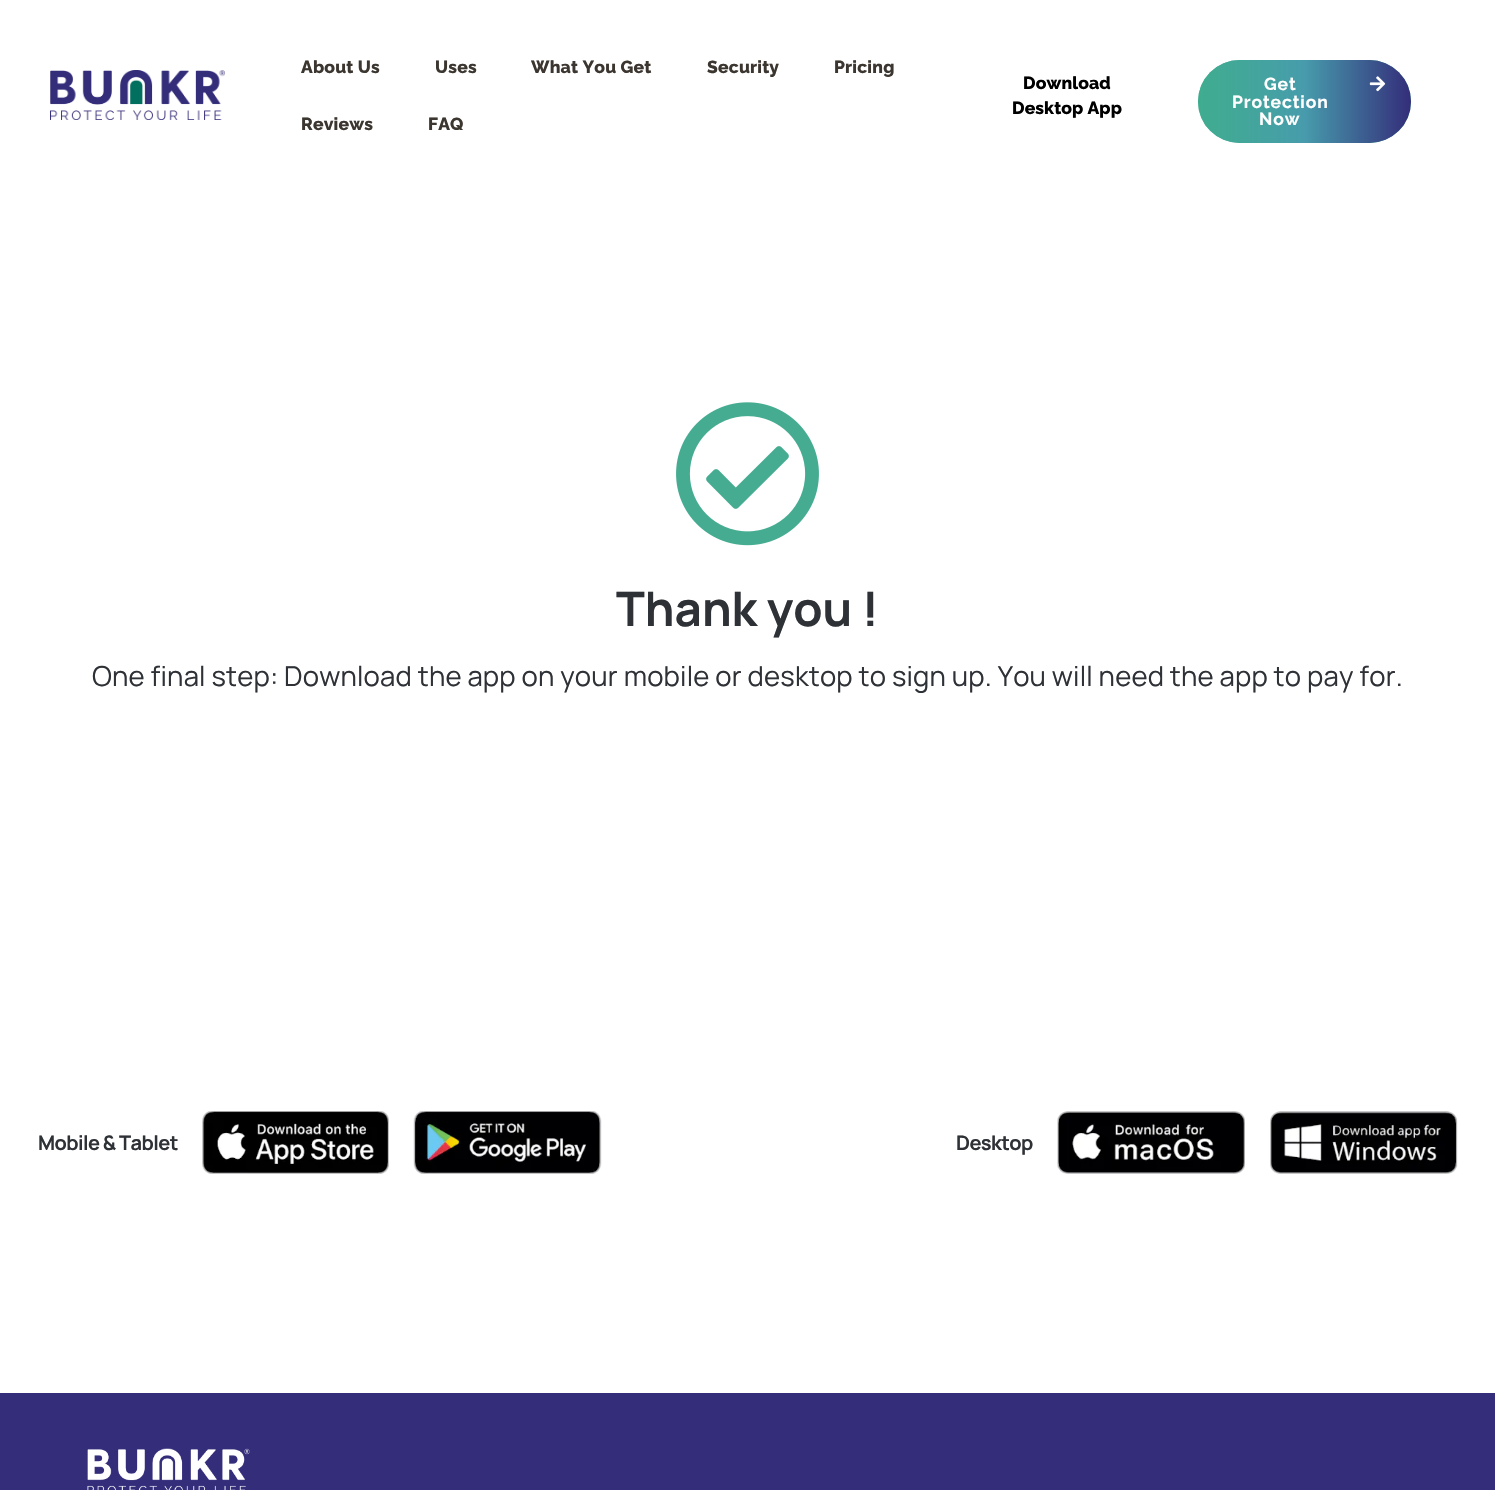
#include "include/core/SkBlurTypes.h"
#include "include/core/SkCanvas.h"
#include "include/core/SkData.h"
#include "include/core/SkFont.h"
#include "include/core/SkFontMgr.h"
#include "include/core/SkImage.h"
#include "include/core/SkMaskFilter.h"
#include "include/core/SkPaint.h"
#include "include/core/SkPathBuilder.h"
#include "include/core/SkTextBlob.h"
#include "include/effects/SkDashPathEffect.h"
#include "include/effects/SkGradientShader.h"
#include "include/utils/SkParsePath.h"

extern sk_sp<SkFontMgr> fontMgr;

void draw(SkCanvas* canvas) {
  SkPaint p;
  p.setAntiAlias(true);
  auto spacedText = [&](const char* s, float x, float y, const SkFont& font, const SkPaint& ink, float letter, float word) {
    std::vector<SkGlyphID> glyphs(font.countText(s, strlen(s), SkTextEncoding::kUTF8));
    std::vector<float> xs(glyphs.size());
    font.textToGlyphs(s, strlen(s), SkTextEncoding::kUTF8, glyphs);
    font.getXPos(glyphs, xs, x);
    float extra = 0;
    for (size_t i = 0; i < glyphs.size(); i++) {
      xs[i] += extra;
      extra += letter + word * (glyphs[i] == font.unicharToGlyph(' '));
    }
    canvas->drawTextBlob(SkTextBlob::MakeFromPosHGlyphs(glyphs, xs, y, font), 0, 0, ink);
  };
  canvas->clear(SK_ColorWHITE);
  canvas->drawImageRect(SkImages::DeferredFromEncodedData(SkData::MakeFromFileName("images/1.png")), SkRect::MakeLTRB(50, 70, 225, 120), SkSamplingOptions());
  p.setColor(SkColorSetRGB(63, 172, 143));
  canvas->drawRoundRect(SkRect::MakeLTRB(1198, 60, 1411, 143), 41.5f, 41.5f, p);
  {
    const SkColor colors[] = {SkColorSetARGB(199, 63, 172, 143), SkColorSetRGB(71, 155, 172), SkColorSetRGB(52, 45, 122)};
    const float stops[] = {0, 0.5f, 1};
    const SkPoint ends[] = {{1198, 101}, {1411, 101}};
    p.setShader(SkGradientShader::MakeLinear(ends, colors, stops, 3, SkTileMode::kClamp));
    p.setAlpha(255);
  }
  canvas->drawRoundRect(SkRect::MakeLTRB(1198, 60, 1411, 143), 41.5f, 41.5f, p);
  canvas->drawImageRect(SkImages::DeferredFromEncodedData(SkData::MakeFromFileName("images/2.png")), SkRect::MakeLTRB(1369, 76, 1386, 92), SkSamplingOptions());
  canvas->drawImageRect(SkImages::DeferredFromEncodedData(SkData::MakeFromFileName("images/3.png")), SkRect::MakeLTRB(676, 402, 819, 546), SkSamplingOptions());
  canvas->drawImageRect(SkImages::DeferredFromEncodedData(SkData::MakeFromFileName("images/4.png")), SkRect::MakeLTRB(202, 1111, 389, 1174), SkSamplingOptions());
  canvas->drawImageRect(SkImages::DeferredFromEncodedData(SkData::MakeFromFileName("images/5.png")), SkRect::MakeLTRB(413, 1111, 602, 1174), SkSamplingOptions());
  canvas->drawImageRect(SkImages::DeferredFromEncodedData(SkData::MakeFromFileName("images/6.png")), SkRect::MakeLTRB(1057, 1111, 1245, 1174), SkSamplingOptions());
  canvas->drawImageRect(SkImages::DeferredFromEncodedData(SkData::MakeFromFileName("images/7.png")), SkRect::MakeLTRB(1270, 1111, 1458, 1174), SkSamplingOptions());
  p.setShader(nullptr);
  p.setColor(SkColorSetRGB(52, 45, 122));
  canvas->drawRect(SkRect::MakeLTRB(0, 1393, 1495, 1490), p);
  canvas->drawImageRect(SkImages::DeferredFromEncodedData(SkData::MakeFromFileName("images/8.png")), SkRect::MakeLTRB(87, 1448, 250, 1490), SkSamplingOptions());
  SkFont font1(fontMgr->matchFamilyStyle("Raleway", SkFontStyle(800, SkFontStyle::kNormal_Width, SkFontStyle::kUpright_Slant)), 17.5f);
  font1.setSubpixel(true);
  p.setColor(SkColorSetRGB(60, 54, 48));
  spacedText("About Us", 301, 73, font1, p, 0.19f, 0);
  spacedText("Uses", 435, 73, font1, p, 0.19f, 0);
  spacedText("What You Get", 531, 73, font1, p, 0.19f, 0);
  spacedText("Security", 707, 73, font1, p, 0.19f, 0);
  spacedText("Pricing", 834, 73, font1, p, 0.19f, 0);
  spacedText("Reviews", 301, 130, font1, p, 0.19f, 0);
  spacedText("FAQ", 428, 130, font1, p, 0.19f, 0);
  p.setColor(SK_ColorBLACK);
  spacedText("Download", 1023, 89, font1, p, 0.1f, 0);
  spacedText("Desktop App", 1012, 114, font1, p, 0.1f, 0);
  SkFont font2(fontMgr->matchFamilyStyle("Raleway", SkFontStyle::Bold()), 17.5f);
  font2.setSubpixel(true);
  p.setColor(SK_ColorWHITE);
  spacedText("Get", 1264, 90, font2, p, 0.9f, 0);
  spacedText("Protection", 1232, 108, font2, p, 0.9f, 0);
  spacedText("Now", 1259, 125, font2, p, 0.9f, 0);
  SkFont font3(fontMgr->matchFamilyStyle("Manrope", SkFontStyle::Bold()), 47.5f);
  font3.setSubpixel(true);
  p.setColor(SkColorSetRGB(46, 49, 54));
  canvas->drawString("Thank you !", 616, 626, font3, p);
  SkFont font4(fontMgr->matchFamilyStyle("Manrope", SkFontStyle::Normal()), 27.5f);
  font4.setSubpixel(true);
  spacedText("One final step: Download the app on your mobile or desktop to sign up. You will need the app to pay for.", 92, 686, font4, p, 0.19f, 0);
  SkFont font5(fontMgr->matchFamilyStyle("Manrope", SkFontStyle::Bold()), 20);
  font5.setSubpixel(true);
  spacedText("Mobile & Tablet", 38, 1150, font5, p, -0.6f, 0);
  spacedText("Desktop", 956, 1150, font5, p, -0.6f, 0);
}
